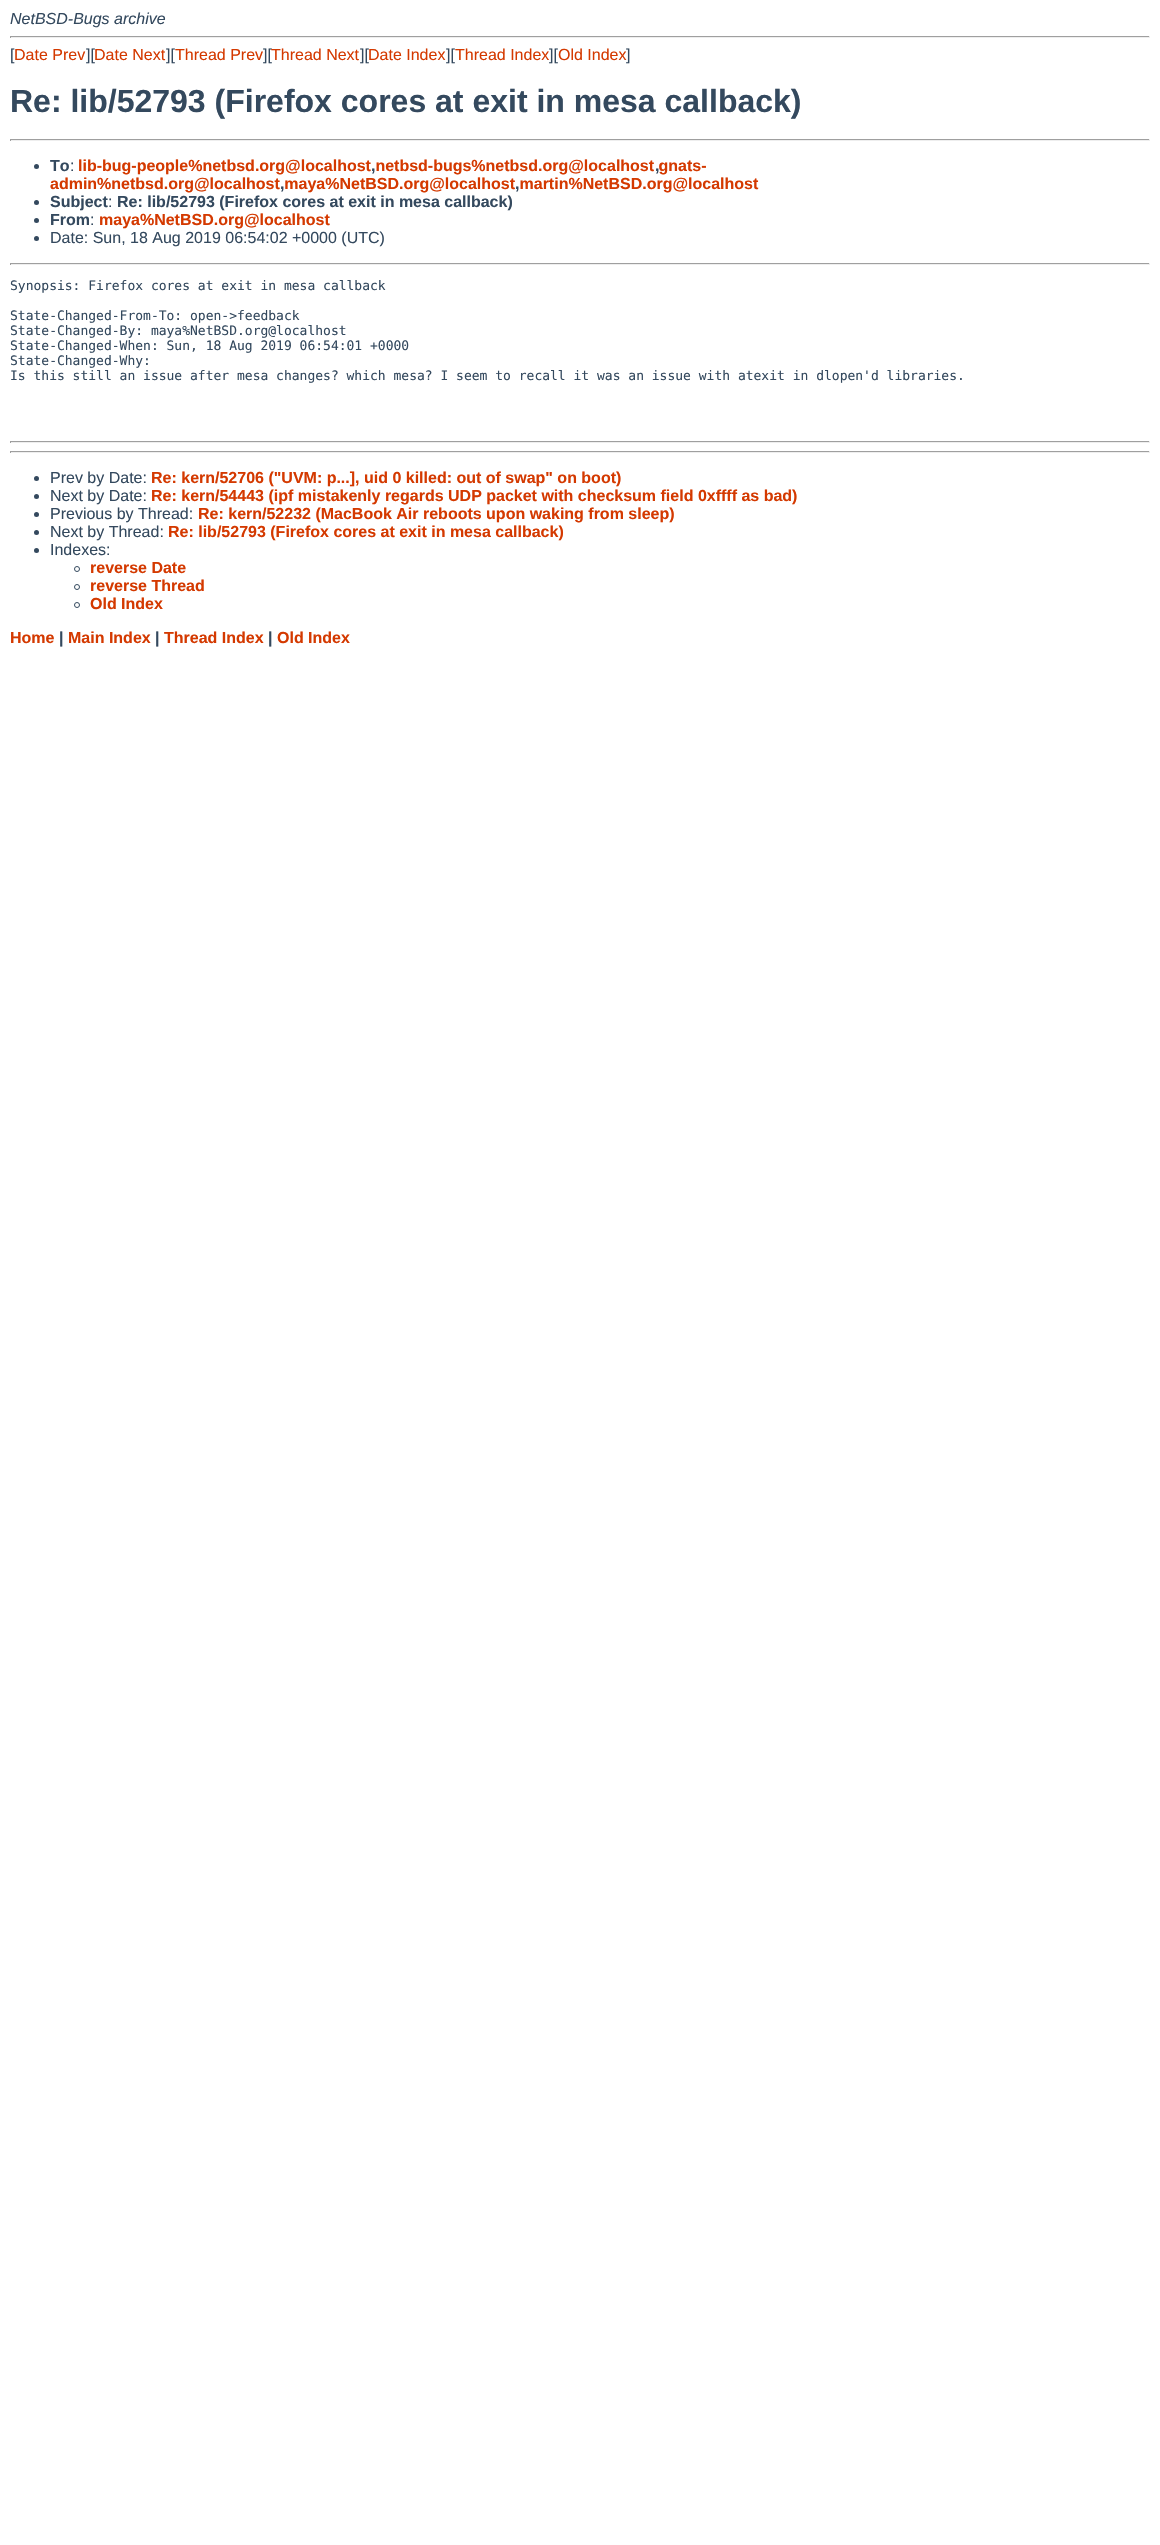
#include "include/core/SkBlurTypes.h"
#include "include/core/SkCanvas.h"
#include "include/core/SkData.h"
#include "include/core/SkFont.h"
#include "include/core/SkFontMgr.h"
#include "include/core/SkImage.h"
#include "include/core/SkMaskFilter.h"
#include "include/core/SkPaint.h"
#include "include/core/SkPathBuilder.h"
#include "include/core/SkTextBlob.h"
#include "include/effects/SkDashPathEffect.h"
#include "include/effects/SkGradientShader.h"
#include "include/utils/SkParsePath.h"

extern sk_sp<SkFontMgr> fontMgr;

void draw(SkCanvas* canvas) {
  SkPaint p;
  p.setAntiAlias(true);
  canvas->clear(SK_ColorWHITE);
  p.setColor(SkColorSetRGB(159, 159, 159));
  canvas->drawRect(SkRect::MakeLTRB(10, 36, 1150, 37), p);
  p.setColor(SkColorSetRGB(238, 238, 238));
  canvas->drawRect(SkRect::MakeLTRB(1149, 36, 1150, 38), p);
  canvas->drawRect(SkRect::MakeLTRB(10, 37, 1150, 38), p);
  p.setColor(SkColorSetRGB(159, 159, 159));
  canvas->drawRect(SkRect::MakeLTRB(10, 36, 11, 38), p);
  canvas->drawRect(SkRect::MakeLTRB(10, 139, 1150, 140), p);
  p.setColor(SkColorSetRGB(238, 238, 238));
  canvas->drawRect(SkRect::MakeLTRB(1149, 139, 1150, 141), p);
  canvas->drawRect(SkRect::MakeLTRB(10, 140, 1150, 141), p);
  p.setColor(SkColorSetRGB(159, 159, 159));
  canvas->drawRect(SkRect::MakeLTRB(10, 139, 11, 141), p);
  p.setColor(SkColorSetRGB(52, 73, 94));
  canvas->drawCircle(36.5f, 166.5f, 2.5f, p);
  canvas->drawCircle(36.5f, 202.5f, 2.5f, p);
  canvas->drawCircle(36.5f, 220.5f, 2.5f, p);
  canvas->drawCircle(36.5f, 238.5f, 2.5f, p);
  p.setColor(SkColorSetRGB(159, 159, 159));
  canvas->drawRect(SkRect::MakeLTRB(10, 263, 1150, 264), p);
  p.setColor(SkColorSetRGB(238, 238, 238));
  canvas->drawRect(SkRect::MakeLTRB(1149, 263, 1150, 265), p);
  canvas->drawRect(SkRect::MakeLTRB(10, 264, 1150, 265), p);
  p.setColor(SkColorSetRGB(159, 159, 159));
  canvas->drawRect(SkRect::MakeLTRB(10, 263, 11, 265), p);
  canvas->drawRect(SkRect::MakeLTRB(10, 441, 1150, 442), p);
  p.setColor(SkColorSetRGB(238, 238, 238));
  canvas->drawRect(SkRect::MakeLTRB(1149, 441, 1150, 443), p);
  canvas->drawRect(SkRect::MakeLTRB(10, 442, 1150, 443), p);
  p.setColor(SkColorSetRGB(159, 159, 159));
  canvas->drawRect(SkRect::MakeLTRB(10, 441, 11, 443), p);
  canvas->drawRect(SkRect::MakeLTRB(10, 451, 1150, 452), p);
  p.setColor(SkColorSetRGB(238, 238, 238));
  canvas->drawRect(SkRect::MakeLTRB(1149, 451, 1150, 453), p);
  canvas->drawRect(SkRect::MakeLTRB(10, 452, 1150, 453), p);
  p.setColor(SkColorSetRGB(159, 159, 159));
  canvas->drawRect(SkRect::MakeLTRB(10, 451, 11, 453), p);
  p.setColor(SkColorSetRGB(52, 73, 94));
  canvas->drawCircle(36.5f, 478.5f, 2.5f, p);
  canvas->drawCircle(36.5f, 496.5f, 2.5f, p);
  canvas->drawCircle(36.5f, 514.5f, 2.5f, p);
  canvas->drawCircle(36.5f, 532.5f, 2.5f, p);
  canvas->drawCircle(36.5f, 550.5f, 2.5f, p);
  p.setStyle(SkPaint::kStroke_Style);
  p.setStrokeWidth(1);
  canvas->drawCircle(77, 569, 2.5f, p);
  canvas->drawCircle(77, 587, 2.5f, p);
  canvas->drawCircle(77, 605, 2.5f, p);
  SkFont font1(fontMgr->matchFamilyStyle("Liberation Sans", SkFontStyle::Italic()), 16);
  font1.setSubpixel(true);
  p.setStyle(SkPaint::kFill_Style);
  canvas->drawString("NetBSD-Bugs archive", 10, 24, font1, p);
  SkFont font2(fontMgr->matchFamilyStyle("Liberation Sans", SkFontStyle::Normal()), 16);
  font2.setSubpixel(true);
  canvas->drawString("[", 10, 60, font2, p);
  p.setColor(SkColorSetRGB(212, 57, 0));
  canvas->drawString("Date Prev", 14, 60, font2, p);
  p.setColor(SkColorSetRGB(52, 73, 94));
  canvas->drawString("][", 86, 60, font2, p);
  p.setColor(SkColorSetRGB(212, 57, 0));
  canvas->drawString("Date Next", 94, 60, font2, p);
  p.setColor(SkColorSetRGB(52, 73, 94));
  canvas->drawString("][", 166, 60, font2, p);
  p.setColor(SkColorSetRGB(212, 57, 0));
  canvas->drawString("Thread Prev", 175, 60, font2, p);
  p.setColor(SkColorSetRGB(52, 73, 94));
  canvas->drawString("][", 263, 60, font2, p);
  p.setColor(SkColorSetRGB(212, 57, 0));
  canvas->drawString("Thread Next", 271, 60, font2, p);
  p.setColor(SkColorSetRGB(52, 73, 94));
  canvas->drawString("][", 360, 60, font2, p);
  p.setColor(SkColorSetRGB(212, 57, 0));
  canvas->drawString("Date Index", 368, 60, font2, p);
  p.setColor(SkColorSetRGB(52, 73, 94));
  canvas->drawString("][", 446, 60, font2, p);
  p.setColor(SkColorSetRGB(212, 57, 0));
  canvas->drawString("Thread Index", 455, 60, font2, p);
  p.setColor(SkColorSetRGB(52, 73, 94));
  canvas->drawString("][", 549, 60, font2, p);
  p.setColor(SkColorSetRGB(212, 57, 0));
  canvas->drawString("Old Index", 558, 60, font2, p);
  p.setColor(SkColorSetRGB(52, 73, 94));
  canvas->drawString("]", 626, 60, font2, p);
  SkFont font3(fontMgr->matchFamilyStyle("Liberation Sans", SkFontStyle::Bold()), 32);
  font3.setSubpixel(true);
  canvas->drawString("Re: lib/52793 (Firefox cores at exit in mesa callback)", 10, 112, font3, p);
  SkFont font4(fontMgr->matchFamilyStyle("Liberation Sans", SkFontStyle::Bold()), 16);
  font4.setSubpixel(true);
  canvas->drawString("To", 50, 171, font4, p);
  canvas->drawString(":", 70, 171, font2, p);
  p.setColor(SkColorSetRGB(212, 57, 0));
  canvas->drawString("lib-bug-people%netbsd.org@localhost netbsd-bugs%netbsd.org@localhost gnats-", 78, 171, font4, p);
  p.setColor(SkColorSetRGB(52, 73, 94));
  canvas->drawString(",", 371, 171, font4, p);
  canvas->drawString(",", 655, 171, font4, p);
  p.setColor(SkColorSetRGB(212, 57, 0));
  canvas->drawString("admin%netbsd.org@localhost maya%NetBSD.org@localhost martin%NetBSD.org@localhost", 50, 189, font4, p);
  p.setColor(SkColorSetRGB(52, 73, 94));
  canvas->drawString(",", 280, 189, font4, p);
  canvas->drawString(",", 515, 189, font4, p);
  canvas->drawString("Subject", 50, 207, font4, p);
  canvas->drawString(":", 108, 207, font2, p);
  canvas->drawString("Re: lib/52793 (Firefox cores at exit in mesa callback)", 117, 207, font4, p);
  canvas->drawString("From", 50, 225, font4, p);
  canvas->drawString(":", 90, 225, font2, p);
  p.setColor(SkColorSetRGB(212, 57, 0));
  canvas->drawString("maya%NetBSD.org@localhost", 99, 225, font4, p);
  p.setColor(SkColorSetRGB(52, 73, 94));
  canvas->drawString("Date: Sun, 18 Aug 2019 06:54:02 +0000 (UTC)", 50, 243, font2, p);
  SkFont font5(fontMgr->matchFamilyStyle("DejaVu Sans Mono", SkFontStyle::Normal()), 13);
  font5.setSubpixel(true);
  canvas->drawString("Synopsis: Firefox cores at exit in mesa callback", 10, 290, font5, p);
  canvas->drawString("State-Changed-From-To: open->feedback", 10, 320, font5, p);
  canvas->drawString("State-Changed-By: maya%NetBSD.org@localhost", 10, 335, font5, p);
  canvas->drawString("State-Changed-When: Sun, 18 Aug 2019 06:54:01 +0000", 10, 350, font5, p);
  canvas->drawString("State-Changed-Why:", 10, 365, font5, p);
  canvas->drawString("Is this still an issue after mesa changes? which mesa? I seem to recall it was an issue with atexit in dlopen'd libraries.", 10, 380, font5, p);
  canvas->drawString("Prev by Date:", 50, 483, font2, p);
  p.setColor(SkColorSetRGB(212, 57, 0));
  canvas->drawString("Re: kern/52706 (\"UVM: p...], uid 0 killed: out of swap\" on boot)", 151, 483, font4, p);
  p.setColor(SkColorSetRGB(52, 73, 94));
  canvas->drawString("Next by Date:", 50, 501, font2, p);
  p.setColor(SkColorSetRGB(212, 57, 0));
  canvas->drawString("Re: kern/54443 (ipf mistakenly regards UDP packet with checksum field 0xffff as bad)", 151, 501, font4, p);
  p.setColor(SkColorSetRGB(52, 73, 94));
  canvas->drawString("Previous by Thread:", 50, 519, font2, p);
  p.setColor(SkColorSetRGB(212, 57, 0));
  canvas->drawString("Re: kern/52232 (MacBook Air reboots upon waking from sleep)", 198, 519, font4, p);
  p.setColor(SkColorSetRGB(52, 73, 94));
  canvas->drawString("Next by Thread:", 50, 537, font2, p);
  p.setColor(SkColorSetRGB(212, 57, 0));
  canvas->drawString("Re: lib/52793 (Firefox cores at exit in mesa callback)", 168, 537, font4, p);
  p.setColor(SkColorSetRGB(52, 73, 94));
  canvas->drawString("Indexes:", 50, 555, font2, p);
  p.setColor(SkColorSetRGB(212, 57, 0));
  canvas->drawString("reverse Date", 90, 573, font4, p);
  canvas->drawString("reverse Thread", 90, 591, font4, p);
  canvas->drawString("Old Index", 90, 609, font4, p);
  canvas->drawString("Home", 10, 643, font4, p);
  p.setColor(SkColorSetRGB(52, 73, 94));
  canvas->drawString("|", 59, 643, font4, p);
  p.setColor(SkColorSetRGB(212, 57, 0));
  canvas->drawString("Main Index", 68, 643, font4, p);
  p.setColor(SkColorSetRGB(52, 73, 94));
  canvas->drawString("|", 155, 643, font4, p);
  p.setColor(SkColorSetRGB(212, 57, 0));
  canvas->drawString("Thread Index", 164, 643, font4, p);
  p.setColor(SkColorSetRGB(52, 73, 94));
  canvas->drawString("|", 268, 643, font4, p);
  p.setColor(SkColorSetRGB(212, 57, 0));
  canvas->drawString("Old Index", 277, 643, font4, p);
}
